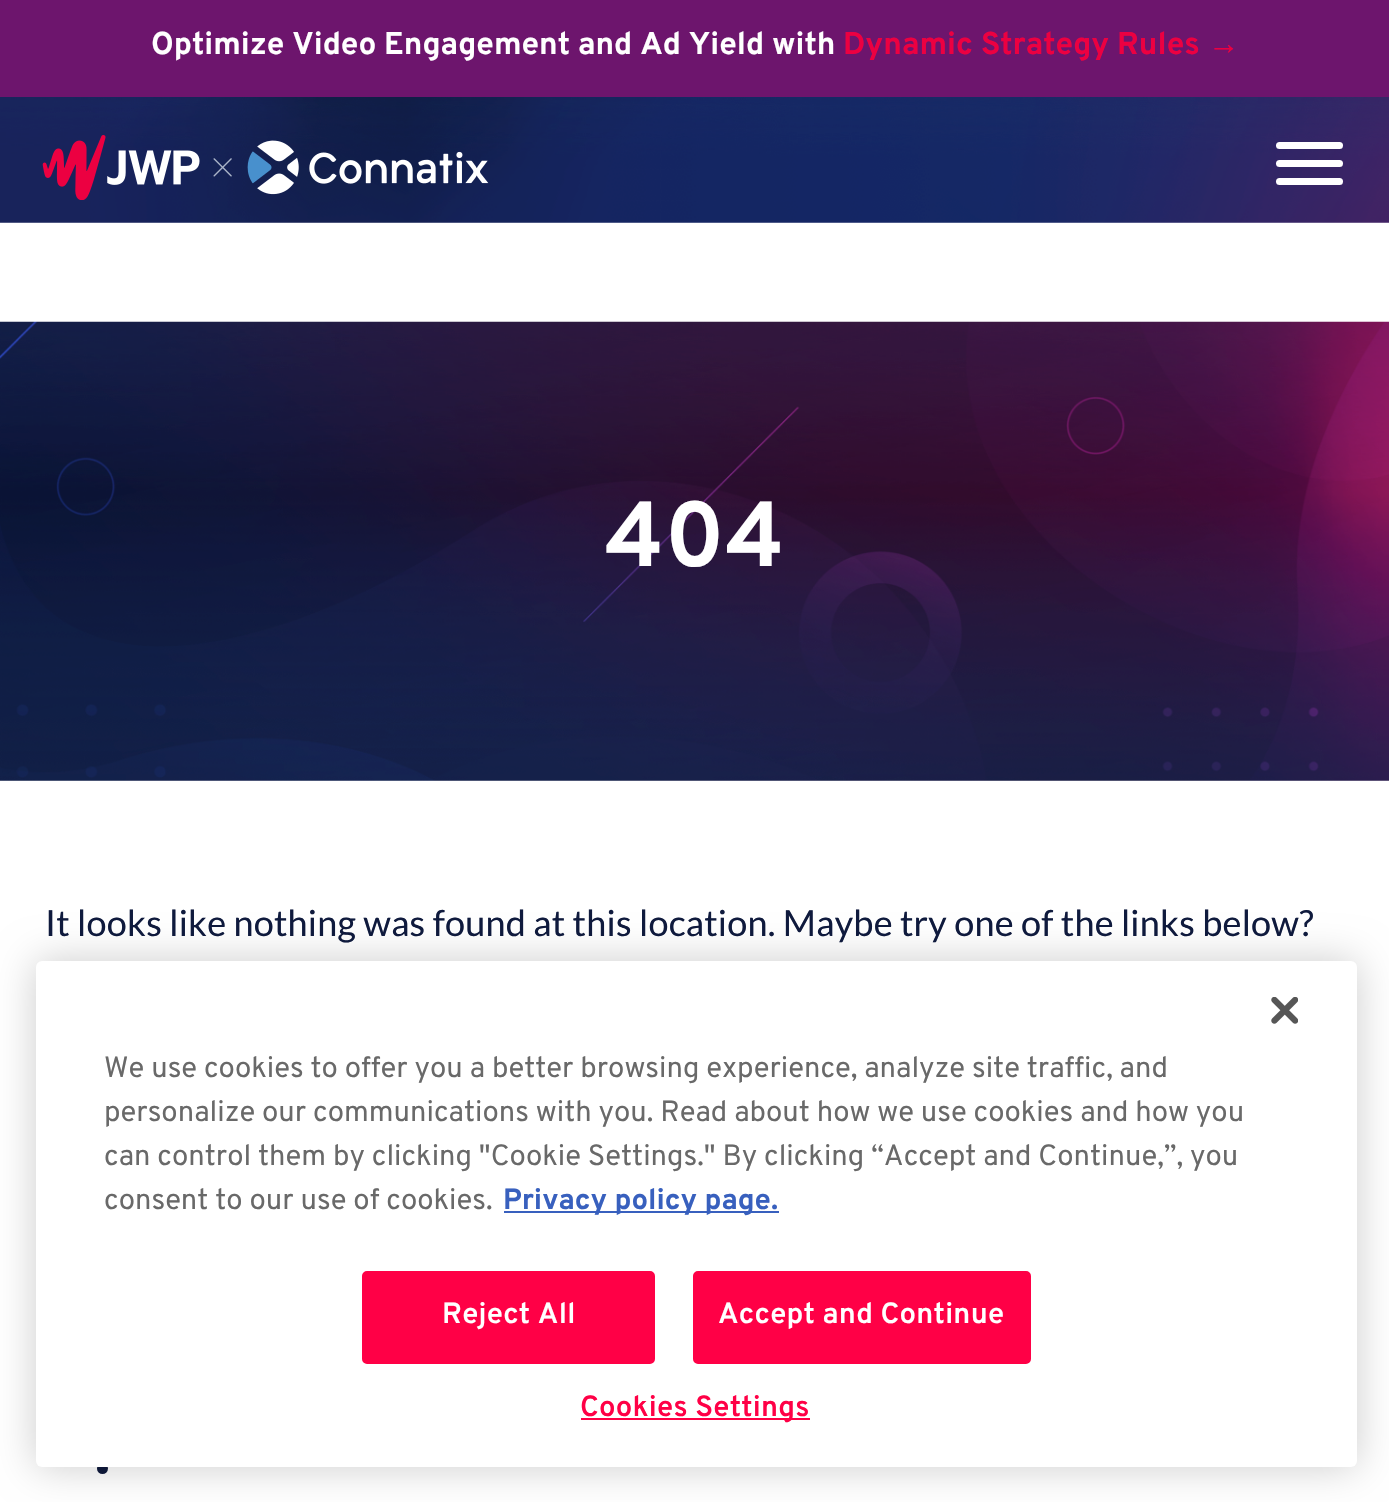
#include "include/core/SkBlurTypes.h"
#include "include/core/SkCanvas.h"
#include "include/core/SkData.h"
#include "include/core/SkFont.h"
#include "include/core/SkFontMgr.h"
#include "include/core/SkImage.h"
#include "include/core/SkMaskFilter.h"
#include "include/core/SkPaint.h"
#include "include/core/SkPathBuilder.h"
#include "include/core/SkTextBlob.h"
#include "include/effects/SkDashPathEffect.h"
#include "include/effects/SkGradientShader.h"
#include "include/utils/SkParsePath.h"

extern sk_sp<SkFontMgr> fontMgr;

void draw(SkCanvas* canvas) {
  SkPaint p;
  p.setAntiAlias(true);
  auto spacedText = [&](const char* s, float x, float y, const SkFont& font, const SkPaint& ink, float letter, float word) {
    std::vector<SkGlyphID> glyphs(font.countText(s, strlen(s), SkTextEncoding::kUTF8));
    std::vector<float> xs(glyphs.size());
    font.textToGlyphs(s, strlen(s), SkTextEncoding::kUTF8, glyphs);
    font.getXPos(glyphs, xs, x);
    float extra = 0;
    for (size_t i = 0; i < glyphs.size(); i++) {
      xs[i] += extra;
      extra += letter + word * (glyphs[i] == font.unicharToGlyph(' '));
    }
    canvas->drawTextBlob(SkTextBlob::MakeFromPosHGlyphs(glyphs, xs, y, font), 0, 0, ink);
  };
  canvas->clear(SK_ColorWHITE);
  p.setColor(SkColorSetRGB(109, 21, 109));
  canvas->drawRect(SkRect::MakeLTRB(0, 0, 1389, 97), p);
  canvas->drawImageRect(SkImages::DeferredFromEncodedData(SkData::MakeFromFileName("images/1.png")), SkRect::MakeLTRB(0, 97, 1389, 223), SkSamplingOptions());
  canvas->drawImageRect(SkImages::DeferredFromEncodedData(SkData::MakeFromFileName("images/2.png")), SkRect::MakeLTRB(42, 135, 489, 200), SkSamplingOptions());
  p.setColor(SK_ColorWHITE);
  canvas->drawRoundRect(SkRect::MakeLTRB(1276, 160, 1343, 167), 3.5f, 3.5f, p);
  canvas->drawRoundRect(SkRect::MakeLTRB(1276, 142, 1343, 149), 3.5f, 3.5f, p);
  canvas->drawRoundRect(SkRect::MakeLTRB(1276, 178, 1343, 185), 3.5f, 3.5f, p);
  canvas->drawImageRect(SkImages::DeferredFromEncodedData(SkData::MakeFromFileName("images/3.png")), SkRect::MakeLTRB(0, 321, 1389, 781), SkSamplingOptions());
  p.setColor(SkColorSetRGB(15, 26, 61));
  canvas->drawCircle(102.5f, 1468.5f, 5.5f, p);
  p.setColor(SkColorSetARGB(51, 0, 0, 0));
  p.setMaskFilter(SkMaskFilter::MakeBlur(kNormal_SkBlurStyle, 20));
  canvas->drawRoundRect(SkRect::MakeLTRB(36, 961, 1357, 1467), 6, 6, p);
  p.setMaskFilter(nullptr);
  p.setColor(SK_ColorWHITE);
  canvas->drawRoundRect(SkRect::MakeLTRB(36, 961, 1357, 1467), 6, 6, p);
  canvas->drawImageRect(SkImages::DeferredFromEncodedData(SkData::MakeFromFileName("images/4.png")), SkRect::MakeLTRB(1271, 997, 1298, 1024), SkSamplingOptions());
  p.setColor(SkColorSetRGB(56, 96, 190));
  canvas->drawRect(SkRect::MakeLTRB(504, 1211, 779, 1213), p);
  p.setColor(SkColorSetRGB(255, 0, 70));
  canvas->drawRoundRect(SkRect::MakeLTRB(363, 1272, 654, 1363), 4, 4, p);
  p.setStyle(SkPaint::kStroke_Style);
  p.setStrokeWidth(2);
  canvas->drawRoundRect(SkRect::MakeLTRB(363, 1272, 654, 1363), 4, 4, p);
  p.setStyle(SkPaint::kFill_Style);
  canvas->drawRoundRect(SkRect::MakeLTRB(694, 1272, 1030, 1363), 4, 4, p);
  p.setStyle(SkPaint::kStroke_Style);
  canvas->drawRoundRect(SkRect::MakeLTRB(694, 1272, 1030, 1363), 4, 4, p);
  p.setStyle(SkPaint::kFill_Style);
  canvas->drawRect(SkRect::MakeLTRB(581, 1418, 810, 1420), p);
  SkFont font1(fontMgr->matchFamilyStyle("Overpass", SkFontStyle::Bold()), 31.5f);
  font1.setSubpixel(true);
  p.setColor(SK_ColorWHITE);
  canvas->drawString("Optimize Video Engagement and Ad Yield with", 151, 54, font1, p);
  p.setColor(SkColorSetRGB(236, 0, 65));
  canvas->drawString("Dynamic Strategy Rules", 843, 54, font1, p);
  SkFont font2(fontMgr->matchFamilyStyle("Liberation Serif", SkFontStyle::Bold()), 31.5f);
  font2.setSubpixel(true);
  canvas->drawString("→", 1208, 54, font2, p);
  SkFont font3(fontMgr->matchFamilyStyle("Overpass", SkFontStyle::Bold()), 92);
  font3.setSubpixel(true);
  p.setColor(SK_ColorWHITE);
  spacedText("404", 605, 566, font3, p, 0.5f, 0);
  SkFont font4(fontMgr->matchFamilyStyle("Lato", SkFontStyle::Normal()), 36);
  font4.setSubpixel(true);
  p.setColor(SkColorSetRGB(15, 26, 61));
  spacedText("It looks like nothing was found at this location. Maybe try one of the links below?", 45, 936, font4, p, 0.23f, 0);
  SkFont font5(fontMgr->matchFamilyStyle("Overpass", SkFontStyle::Normal()), 29.25f);
  font5.setSubpixel(true);
  p.setColor(SkColorSetRGB(105, 105, 105));
  canvas->drawString("We use cookies to offer you a better browsing experience, analyze site traffic, and", 104, 1077, font5, p);
  canvas->drawString("personalize our communications with you. Read about how we use cookies and how you", 104, 1121, font5, p);
  canvas->drawString("can control them by clicking \"Cookie Settings.\" By clicking “Accept and Continue,”, you", 104, 1165, font5, p);
  canvas->drawString("consent to our use of cookies.", 104, 1209, font5, p);
  SkFont font6(fontMgr->matchFamilyStyle("Overpass", SkFontStyle::Bold()), 29.25f);
  font6.setSubpixel(true);
  p.setColor(SkColorSetRGB(56, 96, 190));
  canvas->drawString("Privacy policy page.", 503, 1209, font6, p);
  SkFont font7(fontMgr->matchFamilyStyle("Overpass", SkFontStyle(600, SkFontStyle::kNormal_Width, SkFontStyle::kUpright_Slant)), 29.25f);
  font7.setSubpixel(true);
  p.setColor(SK_ColorWHITE);
  spacedText("Reject All", 442, 1323, font7, p, 0.25f, 0);
  spacedText("Accept and Continue", 718, 1323, font7, p, 0.25f, 0);
  p.setColor(SkColorSetRGB(255, 0, 70));
  spacedText("Cookies Settings", 580, 1416, font7, p, 0.25f, 0);
}
